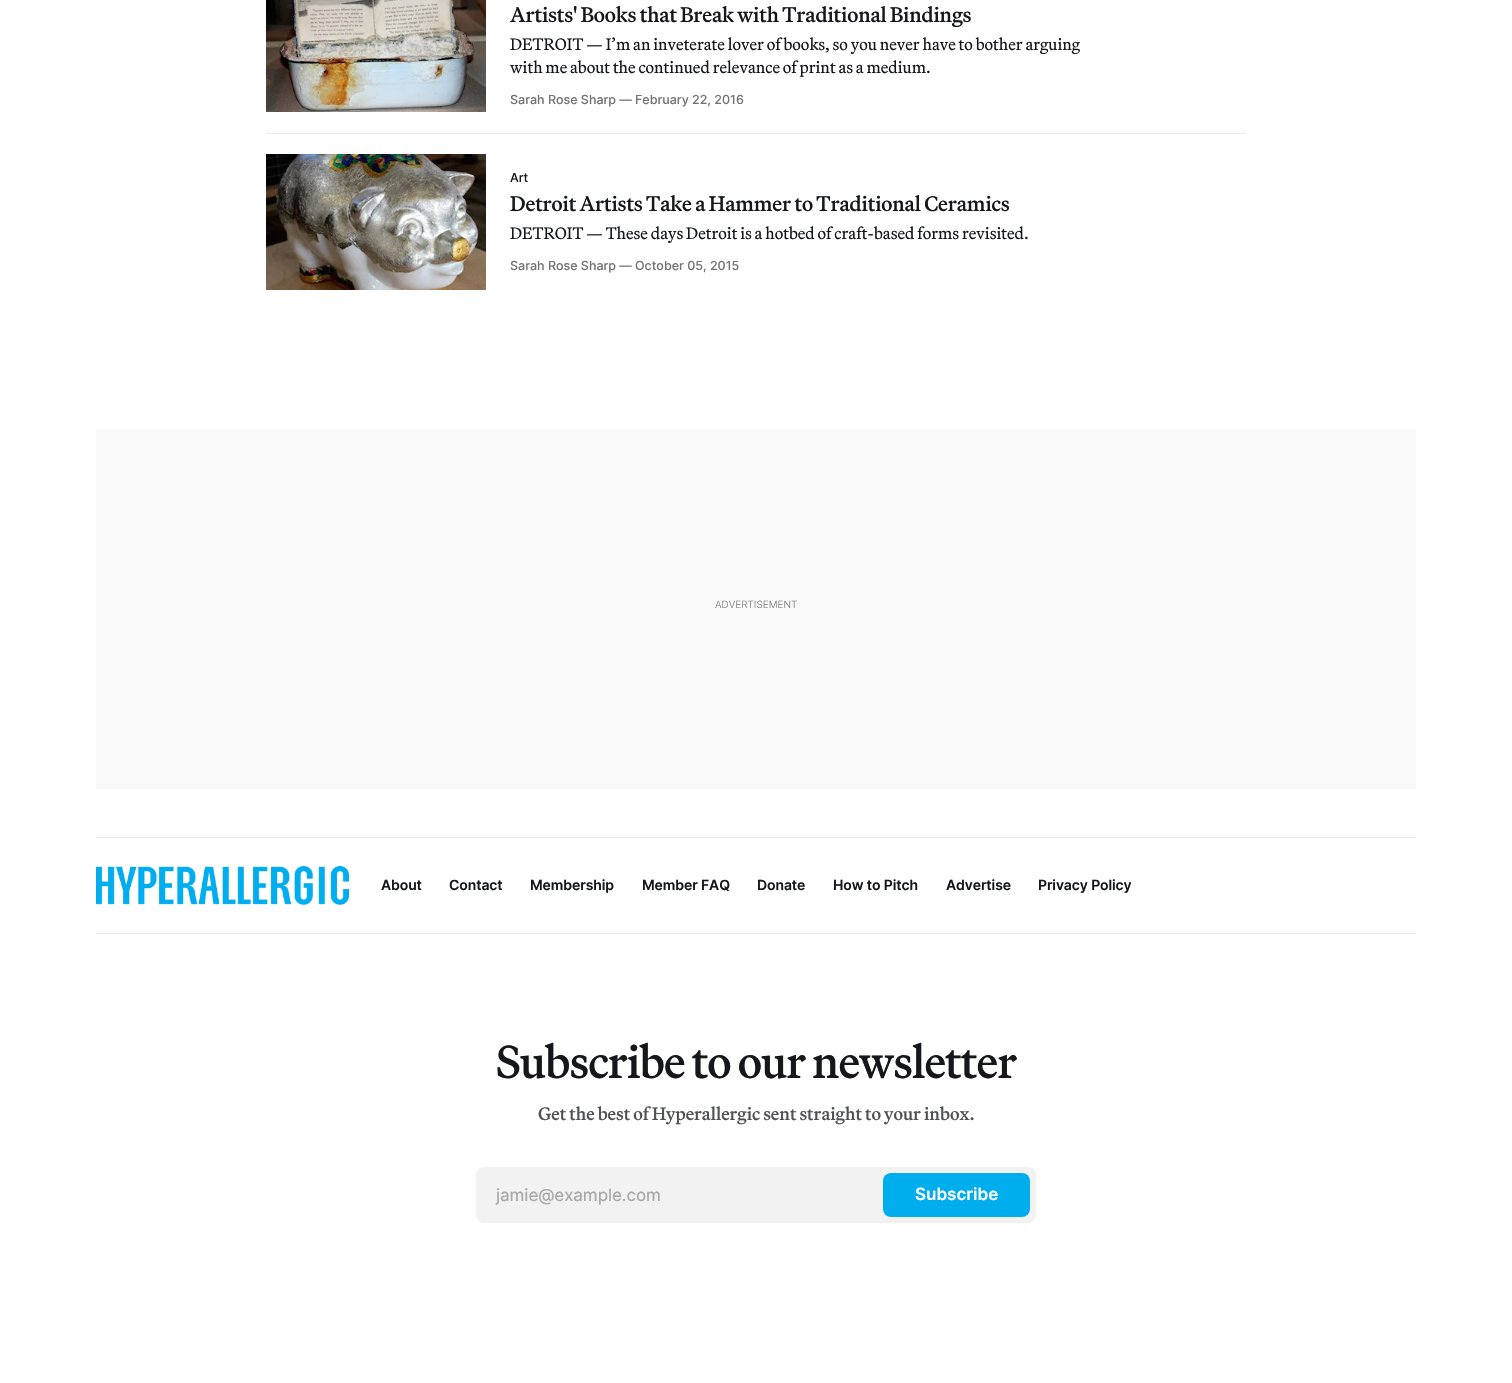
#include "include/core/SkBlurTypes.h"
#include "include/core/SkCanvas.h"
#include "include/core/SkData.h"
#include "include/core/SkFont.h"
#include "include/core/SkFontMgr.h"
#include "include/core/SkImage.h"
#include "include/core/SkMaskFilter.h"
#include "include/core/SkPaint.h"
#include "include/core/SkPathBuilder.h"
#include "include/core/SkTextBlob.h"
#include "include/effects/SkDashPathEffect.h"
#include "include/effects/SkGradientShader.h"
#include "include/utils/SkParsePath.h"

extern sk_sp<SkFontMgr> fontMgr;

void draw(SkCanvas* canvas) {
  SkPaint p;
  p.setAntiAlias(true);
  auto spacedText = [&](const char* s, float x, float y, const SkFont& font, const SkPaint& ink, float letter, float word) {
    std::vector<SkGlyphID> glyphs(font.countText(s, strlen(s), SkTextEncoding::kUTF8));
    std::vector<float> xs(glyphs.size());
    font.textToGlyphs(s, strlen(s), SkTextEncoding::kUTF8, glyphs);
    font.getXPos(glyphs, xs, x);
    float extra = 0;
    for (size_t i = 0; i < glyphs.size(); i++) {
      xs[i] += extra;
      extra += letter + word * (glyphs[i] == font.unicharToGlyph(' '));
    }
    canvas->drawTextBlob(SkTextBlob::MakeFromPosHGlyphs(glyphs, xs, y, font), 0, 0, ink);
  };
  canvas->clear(SK_ColorWHITE);
  canvas->drawImageRect(SkImages::DeferredFromEncodedData(SkData::MakeFromFileName("images/1.png")), SkRect::MakeLTRB(266, 0, 486, 112), SkSamplingOptions());
  p.setColor(SkColorSetRGB(235, 235, 235));
  canvas->drawRect(SkRect::MakeLTRB(266, 133, 1246, 134), p);
  canvas->drawImageRect(SkImages::DeferredFromEncodedData(SkData::MakeFromFileName("images/2.png")), SkRect::MakeLTRB(266, 154, 486, 290), SkSamplingOptions());
  p.setColor(SkColorSetRGB(249, 249, 249));
  canvas->drawRect(SkRect::MakeLTRB(96, 429, 1416, 789), p);
  p.setColor(SkColorSetRGB(235, 235, 235));
  canvas->drawRect(SkRect::MakeLTRB(96, 837, 1416, 838), p);
  canvas->drawRect(SkRect::MakeLTRB(96, 933, 1416, 934), p);
  canvas->drawImageRect(SkImages::DeferredFromEncodedData(SkData::MakeFromFileName("images/3.png")), SkRect::MakeLTRB(96, 866, 349, 905), SkSamplingOptions());
  p.setColor(SkColorSetRGB(242, 242, 242));
  canvas->drawRoundRect(SkRect::MakeLTRB(476, 1167, 1036, 1223), 8, 8, p);
  p.setColor(SkColorSetRGB(0, 174, 238));
  canvas->drawRoundRect(SkRect::MakeLTRB(883, 1173, 1030, 1217), 8, 8, p);
  SkFont font1(fontMgr->matchFamilyStyle("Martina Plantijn", SkFontStyle(500, SkFontStyle::kNormal_Width, SkFontStyle::kUpright_Slant)), 21);
  font1.setSubpixel(true);
  p.setColor(SkColorSetRGB(21, 23, 26));
  spacedText("Artists' Books that Break with Traditional Bindings", 510, 22, font1, p, -0.13f, 0);
  SkFont font2(fontMgr->matchFamilyStyle("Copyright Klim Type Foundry", SkFontStyle::Normal()), 16.5f);
  font2.setSubpixel(true);
  canvas->drawString("DETROIT — I’m an inveterate lover of books, so you never have to bother arguing", 510, 50, font2, p);
  canvas->drawString("with me about the continued relevance of print as a medium.", 510, 73, font2, p);
  SkFont font3(fontMgr->matchFamilyStyle("Inter", SkFontStyle(500, SkFontStyle::kNormal_Width, SkFontStyle::kUpright_Slant)), 12.5f);
  font3.setSubpixel(true);
  p.setColor(SkColorSetRGB(115, 115, 115));
  canvas->drawString("Sarah Rose Sharp —", 510, 104, font3, p);
  canvas->drawString("February 22, 2016", 635, 104, font3, p);
  p.setColor(SkColorSetRGB(21, 23, 26));
  canvas->drawString("Art", 510, 182, font3, p);
  spacedText("Detroit Artists Take a Hammer to Traditional Ceramics", 510, 211, font1, p, -0.13f, 0);
  canvas->drawString("DETROIT — These days Detroit is a hotbed of craft-based forms revisited.", 510, 239, font2, p);
  p.setColor(SkColorSetRGB(115, 115, 115));
  canvas->drawString("Sarah Rose Sharp —", 510, 270, font3, p);
  canvas->drawString("October 05, 2015", 635, 270, font3, p);
  SkFont font4(fontMgr->matchFamilyStyle("Inter", SkFontStyle(300, SkFontStyle::kNormal_Width, SkFontStyle::kUpright_Slant)), 10);
  font4.setSubpixel(true);
  p.setColor(SkColorSetRGB(128, 128, 128));
  canvas->drawString("ADVERTISEMENT", 715, 608, font4, p);
  SkFont font5(fontMgr->matchFamilyStyle("Inter", SkFontStyle(600, SkFontStyle::kNormal_Width, SkFontStyle::kUpright_Slant)), 14);
  font5.setSubpixel(true);
  p.setColor(SkColorSetRGB(21, 23, 26));
  spacedText("About", 381, 890, font5, p, -0.1f, 0);
  spacedText("Contact", 449, 890, font5, p, -0.1f, 0);
  spacedText("Membership", 530, 890, font5, p, -0.1f, 0);
  spacedText("Member FAQ", 642, 890, font5, p, -0.1f, 0);
  spacedText("Donate", 757, 890, font5, p, -0.1f, 0);
  spacedText("How to Pitch", 833, 890, font5, p, -0.1f, 0);
  spacedText("Advertise", 946, 890, font5, p, -0.1f, 0);
  spacedText("Privacy Policy", 1038, 890, font5, p, -0.1f, 0);
  SkFont font6(fontMgr->matchFamilyStyle("Martina Plantijn", SkFontStyle(500, SkFontStyle::kNormal_Width, SkFontStyle::kUpright_Slant)), 46);
  font6.setSubpixel(true);
  spacedText("Subscribe to our newsletter", 496, 1078, font6, p, -0.9f, 0);
  SkFont font7(fontMgr->matchFamilyStyle("Martina Plantijn", SkFontStyle(500, SkFontStyle::kNormal_Width, SkFontStyle::kUpright_Slant)), 18);
  font7.setSubpixel(true);
  p.setColor(SkColorSetRGB(80, 81, 83));
  canvas->drawString("Get the best of Hyperallergic sent straight to your inbox.", 538, 1120, font7, p);
  SkFont font8(fontMgr->matchFamilyStyle("Inter", SkFontStyle::Normal()), 17);
  font8.setSubpixel(true);
  p.setColor(SkColorSetRGB(169, 169, 169));
  spacedText("jamie@example.com", 496, 1201, font8, p, -0.1f, 0);
  SkFont font9(fontMgr->matchFamilyStyle("Inter", SkFontStyle(600, SkFontStyle::kNormal_Width, SkFontStyle::kUpright_Slant)), 17);
  font9.setSubpixel(true);
  p.setColor(SK_ColorWHITE);
  canvas->drawString("Subscribe", 915, 1200, font9, p);
}
